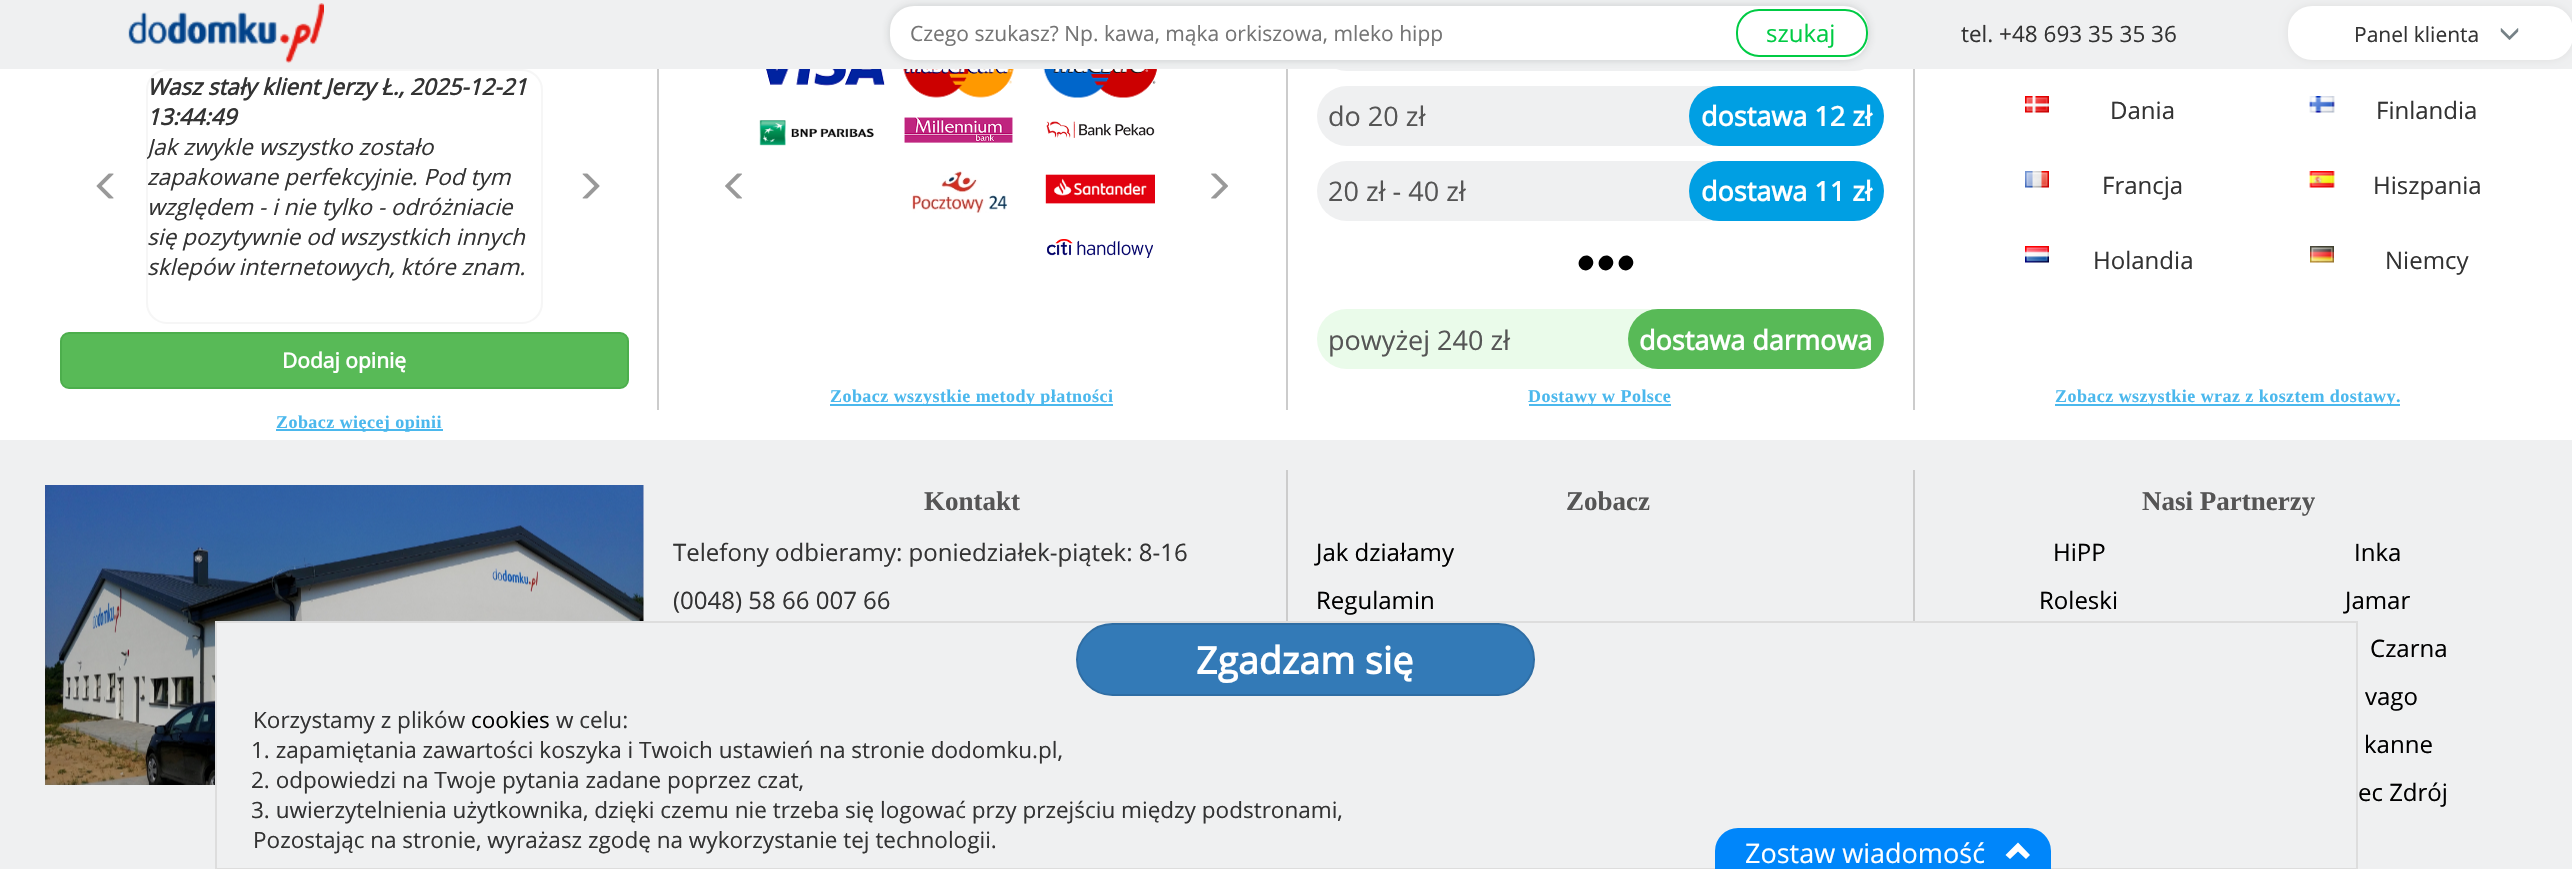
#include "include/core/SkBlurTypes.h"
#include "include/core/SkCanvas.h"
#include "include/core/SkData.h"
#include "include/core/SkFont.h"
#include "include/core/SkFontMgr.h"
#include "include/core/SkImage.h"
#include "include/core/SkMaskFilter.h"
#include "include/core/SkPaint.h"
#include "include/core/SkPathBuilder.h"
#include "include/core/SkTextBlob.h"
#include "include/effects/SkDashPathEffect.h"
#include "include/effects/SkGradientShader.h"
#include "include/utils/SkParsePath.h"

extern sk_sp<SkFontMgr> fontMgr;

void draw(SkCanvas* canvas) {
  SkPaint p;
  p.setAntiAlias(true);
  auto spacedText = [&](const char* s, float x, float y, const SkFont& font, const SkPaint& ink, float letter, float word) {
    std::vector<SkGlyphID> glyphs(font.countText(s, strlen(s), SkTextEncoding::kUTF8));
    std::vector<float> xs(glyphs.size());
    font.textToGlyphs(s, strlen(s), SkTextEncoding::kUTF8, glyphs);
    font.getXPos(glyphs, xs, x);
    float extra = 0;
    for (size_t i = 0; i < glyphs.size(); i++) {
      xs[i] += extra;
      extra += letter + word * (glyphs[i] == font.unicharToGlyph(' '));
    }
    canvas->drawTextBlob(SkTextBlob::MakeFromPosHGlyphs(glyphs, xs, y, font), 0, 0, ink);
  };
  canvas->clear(SK_ColorWHITE);
  p.setColor(SkColorSetRGB(239, 240, 241));
  canvas->drawRoundRect(SkRect::MakeLTRB(1317, 11, 1884, 71), 30, 30, p);
  canvas->drawRect(SkRect::MakeLTRB(0, 0, 2572, 69), p);
  canvas->drawImageRect(SkImages::DeferredFromEncodedData(SkData::MakeFromFileName("images/1.png")), SkRect::MakeLTRB(128, 3, 324, 63), SkSamplingOptions());
  canvas->drawImageRect(SkImages::DeferredFromEncodedData(SkData::MakeFromFileName("images/6.png")), SkRect::MakeLTRB(748, 69, 885, 86), SkSamplingOptions());
  canvas->drawImageRect(SkImages::DeferredFromEncodedData(SkData::MakeFromFileName("images/7.png")), SkRect::MakeLTRB(902, 69, 1015, 98), SkSamplingOptions());
  canvas->drawImageRect(SkImages::DeferredFromEncodedData(SkData::MakeFromFileName("images/8.png")), SkRect::MakeLTRB(1043, 69, 1158, 98), SkSamplingOptions());
  p.setColor(SkColorSetRGB(204, 204, 204));
  canvas->drawRect(SkRect::MakeLTRB(1286, 69, 1288, 410), p);
  p.setColor(SkColorSetARGB(61, 80, 86, 89));
  p.setMaskFilter(SkMaskFilter::MakeBlur(kNormal_SkBlurStyle, 4.5f));
  canvas->drawRoundRect(SkRect::MakeLTRB(890, 6, 1868, 60), 24, 24, p);
  p.setMaskFilter(nullptr);
  p.setColor(SK_ColorWHITE);
  canvas->drawRoundRect(SkRect::MakeLTRB(890, 6, 1868, 60), 24, 24, p);
  canvas->drawRoundRect(SkRect::MakeLTRB(1737, 10, 1867, 56), 22, 22, p);
  p.setStyle(SkPaint::kStroke_Style);
  p.setStrokeWidth(2);
  p.setColor(SkColorSetRGB(0, 203, 68));
  canvas->drawRoundRect(SkRect::MakeLTRB(1737, 10, 1867, 56), 22, 22, p);
  p.setStyle(SkPaint::kFill_Style);
  p.setColor(SkColorSetRGB(223, 223, 223));
  p.setMaskFilter(SkMaskFilter::MakeBlur(kNormal_SkBlurStyle, 4.5f));
  canvas->drawRoundRect(SkRect::MakeLTRB(2288, 6, 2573, 60), 24, 24, p);
  p.setMaskFilter(nullptr);
  p.setColor(SK_ColorWHITE);
  canvas->drawRoundRect(SkRect::MakeLTRB(2288, 6, 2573, 60), 24, 24, p);
  canvas->drawImageRect(SkImages::DeferredFromEncodedData(SkData::MakeFromFileName("images/2.png")), SkRect::MakeLTRB(2500, 28, 2519, 40), SkSamplingOptions());
  canvas->drawImageRect(SkImages::DeferredFromEncodedData(SkData::MakeFromFileName("images/3.png")), SkRect::MakeLTRB(96, 173, 114, 199), SkSamplingOptions());
  p.setStyle(SkPaint::kStroke_Style);
  p.setColor(SkColorSetRGB(246, 246, 246));
  canvas->drawRoundRect(SkRect::MakeLTRB(147, 70, 542, 323), 20, 20, p);
  canvas->drawImageRect(SkImages::DeferredFromEncodedData(SkData::MakeFromFileName("images/4.png")), SkRect::MakeLTRB(582, 173, 600, 199), SkSamplingOptions());
  p.setStyle(SkPaint::kFill_Style);
  p.setColor(SkColorSetRGB(204, 204, 204));
  canvas->drawRect(SkRect::MakeLTRB(657, 69, 659, 410), p);
  p.setColor(SkColorSetRGB(88, 186, 87));
  canvas->drawRoundRect(SkRect::MakeLTRB(61, 333, 628, 388), 8, 8, p);
  p.setStyle(SkPaint::kStroke_Style);
  p.setColor(SkColorSetRGB(76, 174, 76));
  canvas->drawRoundRect(SkRect::MakeLTRB(61, 333, 628, 388), 8, 8, p);
  p.setStyle(SkPaint::kFill_Style);
  p.setColor(SkColorSetRGB(75, 184, 237));
  canvas->drawRect(SkRect::MakeLTRB(276, 429, 443, 431), p);
  canvas->drawImageRect(SkImages::DeferredFromEncodedData(SkData::MakeFromFileName("images/5.png")), SkRect::MakeLTRB(725, 173, 742, 199), SkSamplingOptions());
  canvas->drawImageRect(SkImages::DeferredFromEncodedData(SkData::MakeFromFileName("images/9.png")), SkRect::MakeLTRB(759, 120, 874, 146), SkSamplingOptions());
  canvas->drawImageRect(SkImages::DeferredFromEncodedData(SkData::MakeFromFileName("images/10.png")), SkRect::MakeLTRB(904, 117, 1013, 143), SkSamplingOptions());
  canvas->drawImageRect(SkImages::DeferredFromEncodedData(SkData::MakeFromFileName("images/11.png")), SkRect::MakeLTRB(1046, 121, 1155, 138), SkSamplingOptions());
  canvas->drawImageRect(SkImages::DeferredFromEncodedData(SkData::MakeFromFileName("images/12.png")), SkRect::MakeLTRB(912, 171, 1008, 213), SkSamplingOptions());
  canvas->drawImageRect(SkImages::DeferredFromEncodedData(SkData::MakeFromFileName("images/13.png")), SkRect::MakeLTRB(1045, 174, 1155, 204), SkSamplingOptions());
  canvas->drawImageRect(SkImages::DeferredFromEncodedData(SkData::MakeFromFileName("images/14.png")), SkRect::MakeLTRB(1047, 239, 1153, 258), SkSamplingOptions());
  canvas->drawImageRect(SkImages::DeferredFromEncodedData(SkData::MakeFromFileName("images/15.png")), SkRect::MakeLTRB(1211, 173, 1228, 199), SkSamplingOptions());
  canvas->drawRect(SkRect::MakeLTRB(830, 404, 1113, 406), p);
  p.setColor(SkColorSetRGB(239, 240, 241));
  canvas->drawRoundRect(SkRect::MakeLTRB(1317, 86, 1884, 146), 30, 30, p);
  p.setColor(SkColorSetRGB(0, 159, 227));
  canvas->drawRoundRect(SkRect::MakeLTRB(1689, 86, 1884, 146), 30, 30, p);
  p.setColor(SkColorSetRGB(204, 204, 204));
  canvas->drawRect(SkRect::MakeLTRB(1913, 69, 1915, 410), p);
  p.setColor(SkColorSetRGB(239, 240, 241));
  canvas->drawRoundRect(SkRect::MakeLTRB(1317, 161, 1884, 221), 30, 30, p);
  p.setColor(SkColorSetRGB(0, 159, 227));
  canvas->drawRoundRect(SkRect::MakeLTRB(1689, 161, 1884, 221), 30, 30, p);
  p.setColor(SK_ColorBLACK);
  canvas->drawPath(SkPathBuilder().moveTo(1581, 258).cubicTo(1588, 251, 1598, 261, 1591, 268).cubicTo(1584, 275, 1574, 265, 1581, 258).close().moveTo(1601, 258).cubicTo(1608, 251, 1618, 261, 1611, 268).cubicTo(1604, 275, 1594, 265, 1601, 258).close().moveTo(1621, 258).cubicTo(1628, 251, 1638, 261, 1631, 268).cubicTo(1624, 275, 1614, 265, 1621, 258).close().detach(), p);
  p.setColor(SkColorSetRGB(234, 251, 234));
  canvas->drawRoundRect(SkRect::MakeLTRB(1317, 309, 1884, 369), 30, 30, p);
  p.setColor(SkColorSetRGB(88, 186, 87));
  canvas->drawRoundRect(SkRect::MakeLTRB(1628, 309, 1884, 369), 30, 30, p);
  p.setColor(SkColorSetRGB(75, 184, 237));
  canvas->drawRect(SkRect::MakeLTRB(1529, 404, 1671, 406), p);
  canvas->drawImageRect(SkImages::DeferredFromEncodedData(SkData::MakeFromFileName("images/16.png")), SkRect::MakeLTRB(2025, 96, 2049, 113), SkSamplingOptions());
  canvas->drawImageRect(SkImages::DeferredFromEncodedData(SkData::MakeFromFileName("images/17.png")), SkRect::MakeLTRB(2309, 96, 2335, 113), SkSamplingOptions());
  canvas->drawImageRect(SkImages::DeferredFromEncodedData(SkData::MakeFromFileName("images/18.png")), SkRect::MakeLTRB(2025, 171, 2049, 188), SkSamplingOptions());
  canvas->drawImageRect(SkImages::DeferredFromEncodedData(SkData::MakeFromFileName("images/19.png")), SkRect::MakeLTRB(2309, 171, 2335, 188), SkSamplingOptions());
  canvas->drawImageRect(SkImages::DeferredFromEncodedData(SkData::MakeFromFileName("images/20.png")), SkRect::MakeLTRB(2025, 246, 2049, 263), SkSamplingOptions());
  canvas->drawImageRect(SkImages::DeferredFromEncodedData(SkData::MakeFromFileName("images/21.png")), SkRect::MakeLTRB(2310, 246, 2334, 263), SkSamplingOptions());
  canvas->drawRect(SkRect::MakeLTRB(2055, 404, 2400, 406), p);
  p.setColor(SkColorSetRGB(239, 240, 241));
  canvas->drawRect(SkRect::MakeLTRB(0, 440, 2572, 869), p);
  canvas->drawImageRect(SkImages::DeferredFromEncodedData(SkData::MakeFromFileName("images/22.png")), SkRect::MakeLTRB(45, 485, 644, 785), SkSamplingOptions());
  p.setColor(SkColorSetRGB(204, 204, 204));
  canvas->drawRect(SkRect::MakeLTRB(1286, 470, 1288, 621), p);
  canvas->drawRect(SkRect::MakeLTRB(1913, 470, 1915, 621), p);
  p.setColor(SkColorSetRGB(239, 240, 241));
  canvas->drawRect(SkRect::MakeLTRB(217, 623, 644, 785), p);
  p.setStyle(SkPaint::kStroke_Style);
  p.setColor(SkColorSetRGB(221, 221, 221));
  canvas->drawRect(SkRect::MakeLTRB(216, 622, 2357, 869), p);
  p.setStyle(SkPaint::kFill_Style);
  p.setColor(SkColorSetRGB(51, 122, 183));
  canvas->drawRoundRect(SkRect::MakeLTRB(1077, 624, 1534, 695), 35.5f, 35.5f, p);
  p.setStyle(SkPaint::kStroke_Style);
  p.setColor(SkColorSetRGB(46, 109, 164));
  canvas->drawRoundRect(SkRect::MakeLTRB(1077, 624, 1534, 695), 35.5f, 35.5f, p);
  p.setStyle(SkPaint::kFill_Style);
  p.setColor(SkColorSetRGB(0, 134, 250));
  canvas->drawPath(SkPathBuilder().moveTo(1738, 829).lineTo(2028, 829).cubicTo(2040, 829, 2050, 839, 2050, 851).lineTo(2050, 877).lineTo(1716, 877).lineTo(1716, 851).cubicTo(1716, 839, 1726, 829, 1738, 829).close().detach(), p);
  p.setStyle(SkPaint::kStroke_Style);
  canvas->drawPath(SkPathBuilder().moveTo(1738, 829).lineTo(2028, 829).cubicTo(2040, 829, 2050, 839, 2050, 851).lineTo(2050, 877).lineTo(1716, 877).lineTo(1716, 851).cubicTo(1716, 839, 1726, 829, 1738, 829).close().detach(), p);
  p.setStyle(SkPaint::kFill_Style);
  p.setColor(SK_ColorWHITE);
  canvas->drawPath(SkPathBuilder().moveTo(2030, 855).lineTo(2026, 859).lineTo(2018, 851.5f).lineTo(2010, 859).lineTo(2005.5f, 855).lineTo(2018, 842.5f).close().detach(), p);
  SkFont font1(fontMgr->matchFamilyStyle("Open Sans", SkFontStyle::Normal()), 21);
  font1.setSubpixel(true);
  p.setColor(SkColorSetRGB(117, 117, 117));
  canvas->drawString("Czego szukasz? Np. kawa, mąka orkiszowa, mleko hipp", 910, 41, font1, p);
  SkFont font2(fontMgr->matchFamilyStyle("Open Sans", SkFontStyle::Normal()), 24);
  font2.setSubpixel(true);
  p.setColor(SkColorSetRGB(0, 203, 68));
  canvas->drawString("szukaj", 1766, 42, font2, p);
  SkFont font3(fontMgr->matchFamilyStyle("Open Sans", SkFontStyle::Normal()), 22.5f);
  font3.setSubpixel(true);
  p.setColor(SkColorSetRGB(51, 51, 51));
  canvas->drawString("tel. +48 693 35 35 36", 1961, 42, font3, p);
  canvas->drawString("Panel klienta", 2354, 42, font1, p);
  SkFont font4(fontMgr->matchFamilyStyle("Open Sans", SkFontStyle::BoldItalic()), 22.5f);
  font4.setSubpixel(true);
  canvas->drawString("Wasz stały klient Jerzy Ł., 2025-12-21", 147, 95, font4, p);
  canvas->drawString("13:44:49", 147, 125, font4, p);
  canvas->save();
  canvas->clipPath(SkPathBuilder().moveTo(167, 71).lineTo(522, 71).cubicTo(533, 71, 542, 80, 542, 91).lineTo(542, 303).cubicTo(542, 314, 533, 323, 522, 323).lineTo(167, 323).cubicTo(156, 323, 147, 314, 147, 303).lineTo(147, 91).cubicTo(147, 80, 156, 71, 167, 71).close().detach(), true);
  SkFont font5(fontMgr->matchFamilyStyle("Open Sans", SkFontStyle::Italic()), 22.5f);
  font5.setSubpixel(true);
  canvas->drawString("Jak zwykle wszystko zostało", 147, 155, font5, p);
  canvas->restore();
  canvas->drawString("zapakowane perfekcyjnie. Pod tym", 147, 185, font5, p);
  canvas->drawString("względem - i nie tylko - odróżniacie", 147, 215, font5, p);
  canvas->drawString("się pozytywnie od wszystkich innych", 147, 245, font5, p);
  canvas->drawString("sklepów internetowych, które znam.", 147, 275, font5, p);
  SkFont font6(fontMgr->matchFamilyStyle("Open Sans", SkFontStyle::Bold()), 21);
  font6.setSubpixel(true);
  p.setColor(SK_ColorWHITE);
  canvas->drawString("Dodaj opinię", 282, 368, font6, p);
  SkFont font7(fontMgr->matchFamilyStyle("Liberation Serif", SkFontStyle::Bold()), 18);
  font7.setSubpixel(true);
  p.setColor(SkColorSetRGB(75, 184, 237));
  spacedText("Zobacz więcej opinii", 276, 428, font7, p, 0.45f, 0);
  spacedText("Zobacz wszystkie metody płatności", 830, 402, font7, p, 0.45f, 0);
  SkFont font8(fontMgr->matchFamilyStyle("Open Sans", SkFontStyle::Normal()), 27);
  font8.setSubpixel(true);
  p.setColor(SkColorSetRGB(85, 85, 85));
  canvas->drawString("do 20 zł", 1328, 126, font8, p);
  SkFont font9(fontMgr->matchFamilyStyle("Open Sans", SkFontStyle::Bold()), 27);
  font9.setSubpixel(true);
  p.setColor(SK_ColorWHITE);
  canvas->drawString("dostawa 12 zł", 1701, 126, font9, p);
  p.setColor(SkColorSetRGB(85, 85, 85));
  canvas->drawString("20 zł - 40 zł", 1328, 201, font8, p);
  p.setColor(SK_ColorWHITE);
  canvas->drawString("dostawa 11 zł", 1701, 201, font9, p);
  p.setColor(SkColorSetRGB(85, 85, 85));
  canvas->drawString("powyżej 240 zł", 1328, 350, font8, p);
  p.setColor(SK_ColorWHITE);
  canvas->drawString("dostawa darmowa", 1639, 350, font9, p);
  p.setColor(SkColorSetRGB(75, 184, 237));
  spacedText("Dostawy w Polsce", 1528, 402, font7, p, 0.45f, 0);
  p.setColor(SkColorSetRGB(51, 51, 51));
  canvas->drawString("Dania", 2110, 119, font2, p);
  canvas->drawString("Finlandia", 2376, 119, font2, p);
  canvas->drawString("Francja", 2102, 194, font2, p);
  canvas->drawString("Hiszpania", 2373, 194, font2, p);
  canvas->drawString("Holandia", 2093, 269, font2, p);
  canvas->drawString("Niemcy", 2385, 269, font2, p);
  p.setColor(SkColorSetRGB(75, 184, 237));
  spacedText("Zobacz wszystkie wraz z kosztem dostawy.", 2055, 402, font7, p, 0.45f, 0);
  SkFont font10(fontMgr->matchFamilyStyle("Liberation Serif", SkFontStyle::Bold()), 27);
  font10.setSubpixel(true);
  p.setColor(SkColorSetRGB(85, 85, 85));
  canvas->drawString("Kontakt", 924, 510, font10, p);
  p.setColor(SkColorSetRGB(51, 51, 51));
  canvas->drawString("Telefony odbieramy: poniedziałek-piątek: 8-16", 673, 561, font2, p);
  canvas->drawString("(0048) 58 66 007 66", 673, 609, font2, p);
  p.setColor(SkColorSetRGB(85, 85, 85));
  canvas->drawString("Zobacz", 1566, 510, font10, p);
  p.setColor(SK_ColorBLACK);
  canvas->drawString("Jak działamy", 1316, 561, font2, p);
  canvas->drawString("Regulamin", 1316, 609, font2, p);
  p.setColor(SkColorSetRGB(85, 85, 85));
  canvas->drawString("Nasi Partnerzy", 2142, 510, font10, p);
  p.setColor(SK_ColorBLACK);
  canvas->drawString("HiPP", 2053, 561, font2, p);
  canvas->drawString("Inka", 2354, 561, font2, p);
  canvas->drawString("Roleski", 2039, 609, font2, p);
  canvas->drawString("Jamar", 2345, 609, font2, p);
  canvas->drawString("Czarna", 2370, 657, font2, p);
  canvas->drawString("vago", 2365, 705, font2, p);
  canvas->drawString("kanne", 2364, 753, font2, p);
  canvas->drawString("ec Zdrój", 2358, 801, font2, p);
  SkFont font11(fontMgr->matchFamilyStyle("Open Sans", SkFontStyle::Bold()), 37.5f);
  font11.setSubpixel(true);
  p.setColor(SK_ColorWHITE);
  canvas->drawString("Zgadzam się", 1196, 674, font11, p);
  p.setColor(SkColorSetRGB(51, 51, 51));
  canvas->drawString("Korzystamy z plików", 253, 728, font3, p);
  p.setColor(SK_ColorBLACK);
  canvas->drawString("cookies", 471, 728, font3, p);
  p.setColor(SkColorSetRGB(51, 51, 51));
  canvas->drawString("w celu:", 556, 728, font3, p);
  canvas->drawString("1. zapamiętania zawartości koszyka i Twoich ustawień na stronie dodomku.pl,", 251, 758, font3, p);
  canvas->drawString("2. odpowiedzi na Twoje pytania zadane poprzez czat,", 251, 788, font3, p);
  canvas->drawString("3. uwierzytelnienia użytkownika, dzięki czemu nie trzeba się logować przy przejściu między podstronami,", 251, 818, font3, p);
  canvas->drawString("Pozostając na stronie, wyrażasz zgodę na wykorzystanie tej technologii.", 253, 848, font3, p);
  p.setColor(SK_ColorWHITE);
  canvas->drawString("Zostaw wiadomość", 1745, 863, font8, p);
}
